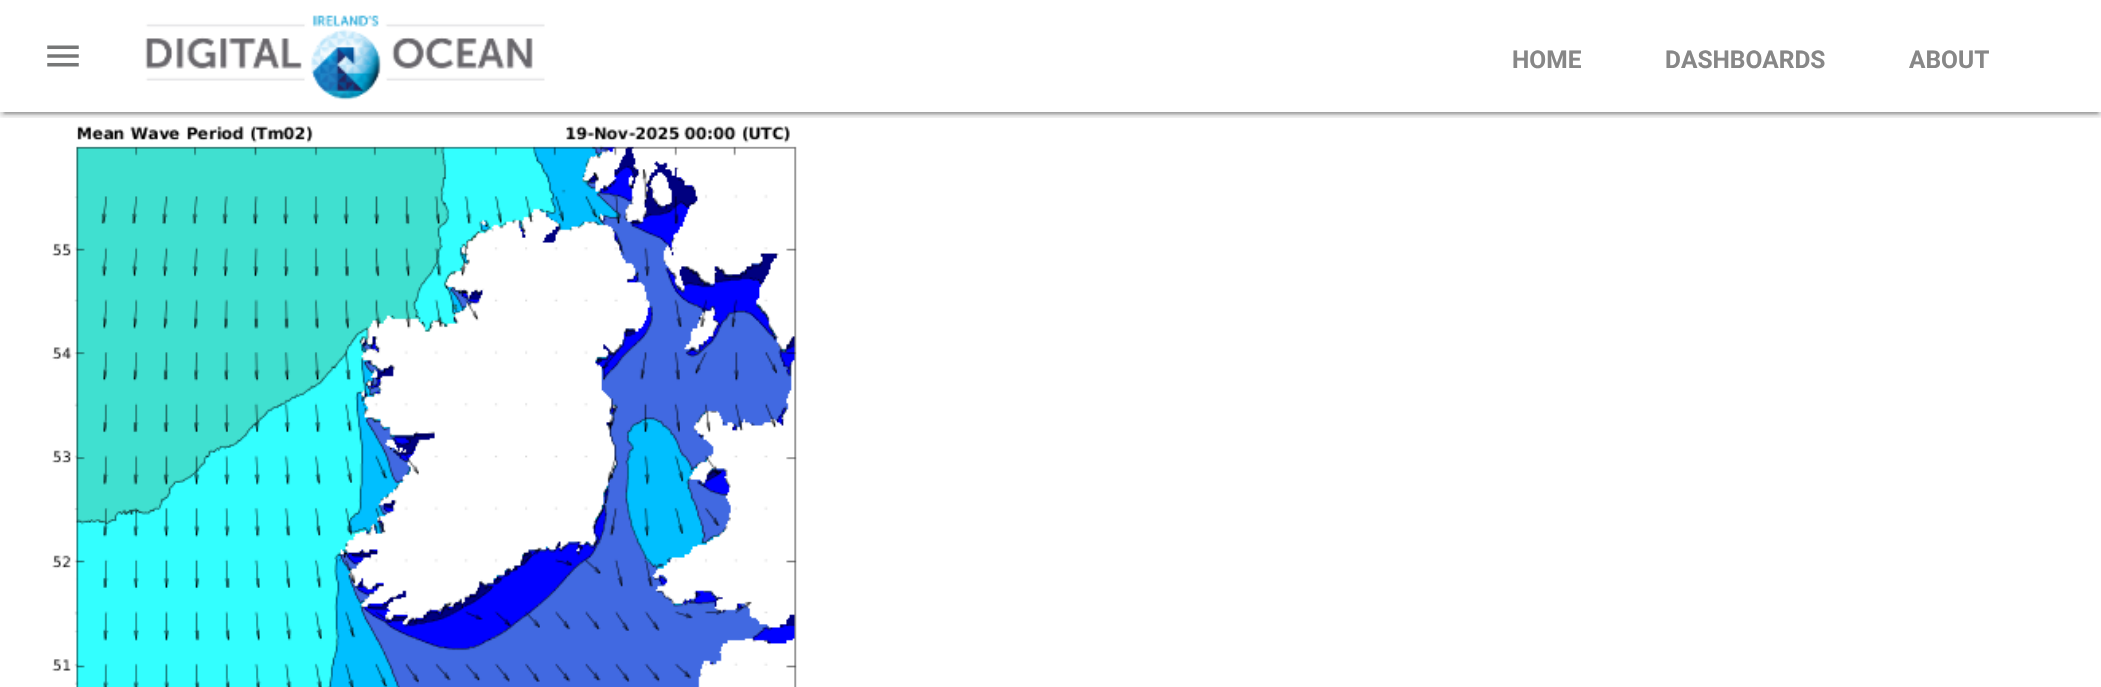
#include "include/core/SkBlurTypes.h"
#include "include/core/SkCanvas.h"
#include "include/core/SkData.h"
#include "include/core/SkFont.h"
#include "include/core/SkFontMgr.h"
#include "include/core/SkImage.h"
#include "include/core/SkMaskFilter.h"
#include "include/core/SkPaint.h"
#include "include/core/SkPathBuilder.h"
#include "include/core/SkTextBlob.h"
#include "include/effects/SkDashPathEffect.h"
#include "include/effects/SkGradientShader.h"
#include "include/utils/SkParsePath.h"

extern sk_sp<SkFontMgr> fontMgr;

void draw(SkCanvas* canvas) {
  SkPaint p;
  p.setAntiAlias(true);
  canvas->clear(SK_ColorWHITE);
  canvas->drawImageRect(SkImages::DeferredFromEncodedData(SkData::MakeFromFileName("images/3.png")), SkRect::MakeLTRB(52, 126, 797, 687), SkSamplingOptions());
  canvas->save();
  canvas->clipRect(SkRect::MakeLTRB(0, 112, 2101, 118));
  p.setColor(SkColorSetARGB(31, 0, 0, 0));
  p.setMaskFilter(SkMaskFilter::MakeBlur(kNormal_SkBlurStyle, 4.5f));
  canvas->drawRect(SkRect::MakeLTRB(0, 2, 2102, 114), p);
  p.setMaskFilter(nullptr);
  canvas->restore();
  canvas->save();
  canvas->clipRect(SkRect::MakeLTRB(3, 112, 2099, 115));
  p.setColor(SkColorSetARGB(51, 0, 0, 0));
  p.setMaskFilter(SkMaskFilter::MakeBlur(kNormal_SkBlurStyle, 1));
  canvas->drawRect(SkRect::MakeLTRB(4, 9, 2098, 114), p);
  p.setMaskFilter(nullptr);
  canvas->restore();
  canvas->save();
  canvas->clipRect(SkRect::MakeLTRB(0, 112, 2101, 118));
  p.setColor(SkColorSetARGB(36, 0, 0, 0));
  p.setMaskFilter(SkMaskFilter::MakeBlur(kNormal_SkBlurStyle, 2));
  canvas->drawRect(SkRect::MakeLTRB(0, 4, 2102, 116), p);
  p.setMaskFilter(nullptr);
  canvas->restore();
  canvas->drawImageRect(SkImages::DeferredFromEncodedData(SkData::MakeFromFileName("images/1.png")), SkRect::MakeLTRB(47, 45, 79, 67), SkSamplingOptions());
  canvas->drawImageRect(SkImages::DeferredFromEncodedData(SkData::MakeFromFileName("images/2.png")), SkRect::MakeLTRB(145, 15, 545, 100), SkSamplingOptions());
  SkFont font1(fontMgr->matchFamilyStyle("Roboto", SkFontStyle::Bold()), 24.5f);
  font1.setSubpixel(true);
  p.setColor(SkColorSetRGB(135, 135, 135));
  canvas->drawString("HOME", 1512, 68, font1, p);
  canvas->drawString("DASHBOARDS", 1665, 68, font1, p);
  canvas->drawString("ABOUT", 1909, 68, font1, p);
}
